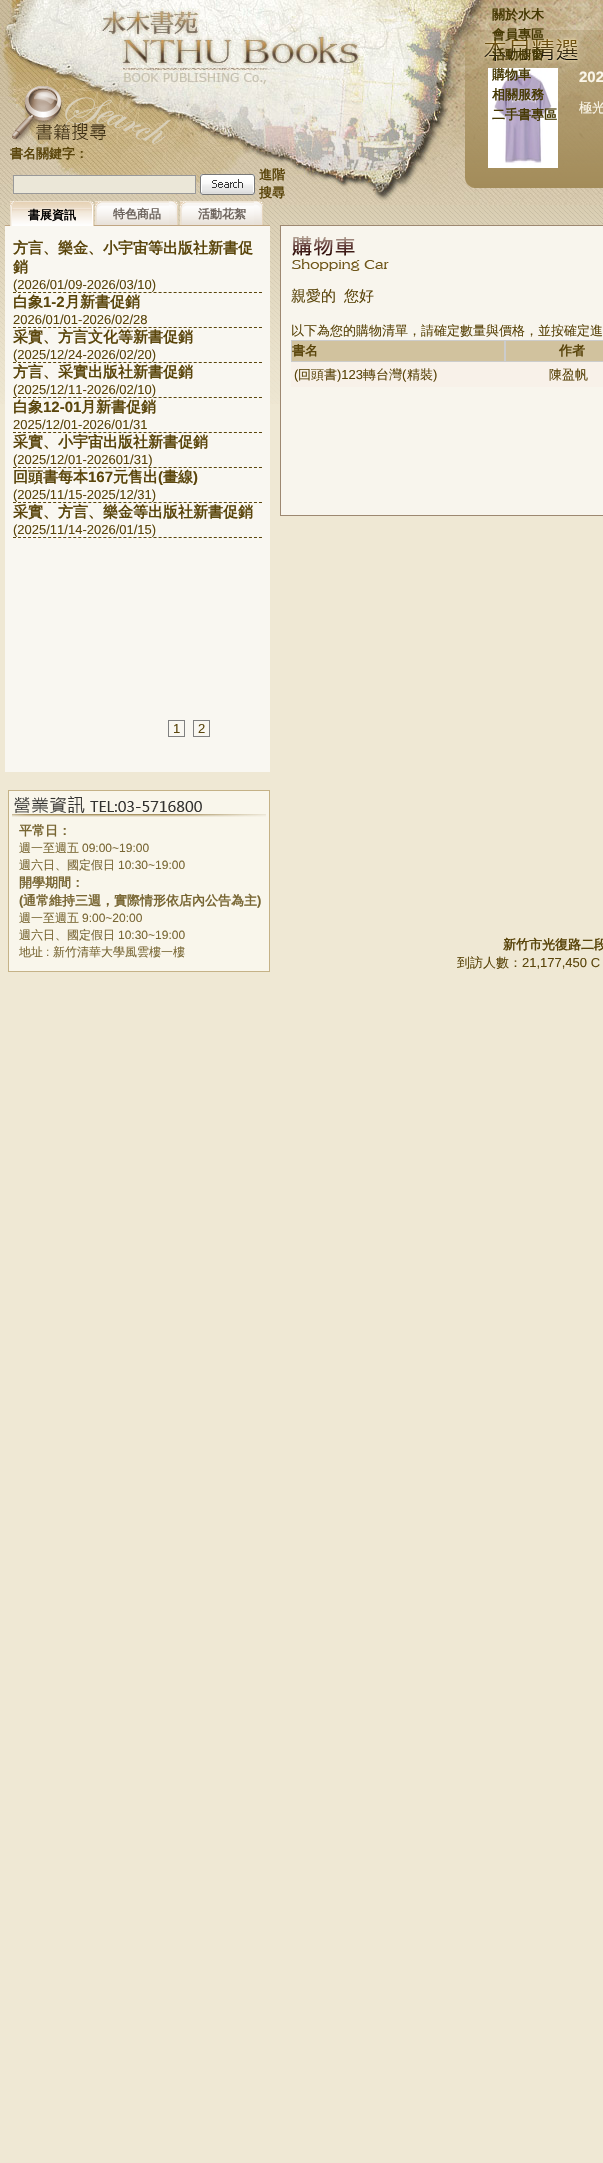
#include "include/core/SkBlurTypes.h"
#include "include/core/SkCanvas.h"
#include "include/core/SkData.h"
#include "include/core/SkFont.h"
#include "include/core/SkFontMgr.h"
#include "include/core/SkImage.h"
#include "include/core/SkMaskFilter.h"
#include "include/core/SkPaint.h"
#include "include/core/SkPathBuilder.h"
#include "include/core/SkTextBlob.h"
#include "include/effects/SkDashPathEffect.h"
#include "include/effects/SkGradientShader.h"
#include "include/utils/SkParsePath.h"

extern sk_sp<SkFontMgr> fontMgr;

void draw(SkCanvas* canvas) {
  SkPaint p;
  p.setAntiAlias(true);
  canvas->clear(SkColorSetRGB(239, 232, 212));
  canvas->drawImageRect(SkImages::DeferredFromEncodedData(SkData::MakeFromFileName("images/1.png")), SkRect::MakeLTRB(0, 205, 603, 404), SkSamplingOptions());
  canvas->drawImageRect(SkImages::DeferredFromEncodedData(SkData::MakeFromFileName("images/2.png")), SkRect::MakeLTRB(0, 0, 603, 205), SkSamplingOptions());
  canvas->drawImageRect(SkImages::DeferredFromEncodedData(SkData::MakeFromFileName("images/3.png")), SkRect::MakeLTRB(465, 30, 603, 188), SkSamplingOptions());
  canvas->drawImageRect(SkImages::DeferredFromEncodedData(SkData::MakeFromFileName("images/4.png")), SkRect::MakeLTRB(488, 68, 558, 168), SkSamplingOptions());
  canvas->drawImageRect(SkImages::DeferredFromEncodedData(SkData::MakeFromFileName("images/5.png")), SkRect::MakeLTRB(11, 85, 171, 144), SkSamplingOptions());
  p.setColor(SkColorSetRGB(235, 231, 216));
  canvas->drawRect(SkRect::MakeLTRB(13.5f, 175.5f, 195.5f, 193.5f), p);
  p.setStyle(SkPaint::kStroke_Style);
  p.setStrokeWidth(1);
  p.setColor(SkColorSetRGB(153, 153, 153));
  canvas->drawRect(SkRect::MakeLTRB(13.5f, 175.5f, 195.5f, 193.5f), p);
  canvas->drawImageRect(SkImages::DeferredFromEncodedData(SkData::MakeFromFileName("images/6.png")), SkRect::MakeLTRB(200, 174, 255, 195), SkSamplingOptions());
  p.setStyle(SkPaint::kFill_Style);
  p.setColor(SkColorSetRGB(192, 166, 131));
  canvas->drawRect(SkRect::MakeLTRB(5, 225, 270, 226), p);
  canvas->drawImageRect(SkImages::DeferredFromEncodedData(SkData::MakeFromFileName("images/7.png")), SkRect::MakeLTRB(10, 201, 94, 226), SkSamplingOptions());
  canvas->drawImageRect(SkImages::DeferredFromEncodedData(SkData::MakeFromFileName("images/8.png")), SkRect::MakeLTRB(10, 201, 16, 226), SkSamplingOptions());
  canvas->drawImageRect(SkImages::DeferredFromEncodedData(SkData::MakeFromFileName("images/9.png")), SkRect::MakeLTRB(95, 201, 178, 225), SkSamplingOptions());
  canvas->drawImageRect(SkImages::DeferredFromEncodedData(SkData::MakeFromFileName("images/10.png")), SkRect::MakeLTRB(95, 201, 169, 225), SkSamplingOptions());
  canvas->drawImageRect(SkImages::DeferredFromEncodedData(SkData::MakeFromFileName("images/11.png")), SkRect::MakeLTRB(180, 201, 263, 225), SkSamplingOptions());
  canvas->drawImageRect(SkImages::DeferredFromEncodedData(SkData::MakeFromFileName("images/10.png")), SkRect::MakeLTRB(180, 201, 254, 225), SkSamplingOptions());
  p.setColor(SkColorSetRGB(249, 247, 241));
  canvas->drawRect(SkRect::MakeLTRB(5, 226, 270, 772), p);
  p.setStyle(SkPaint::kStroke_Style);
  p.setColor(SkColorSetRGB(90, 69, 11));
  p.setPathEffect(SkDashPathEffect::Make({{3, 2.02f}}, 0));
  canvas->drawPath(SkPathBuilder().moveTo(13, 292.5f).lineTo(262, 292.5f).detach(), p);
  p.setPathEffect(nullptr);
  p.setPathEffect(SkDashPathEffect::Make({{3, 2.02f}}, 0));
  canvas->drawPath(SkPathBuilder().moveTo(13, 327.5f).lineTo(262, 327.5f).detach(), p);
  p.setPathEffect(nullptr);
  p.setPathEffect(SkDashPathEffect::Make({{3, 2.02f}}, 0));
  canvas->drawPath(SkPathBuilder().moveTo(13, 362.5f).lineTo(262, 362.5f).detach(), p);
  p.setPathEffect(nullptr);
  p.setPathEffect(SkDashPathEffect::Make({{3, 2.02f}}, 0));
  canvas->drawPath(SkPathBuilder().moveTo(13, 397.5f).lineTo(262, 397.5f).detach(), p);
  p.setPathEffect(nullptr);
  p.setPathEffect(SkDashPathEffect::Make({{3, 2.02f}}, 0));
  canvas->drawPath(SkPathBuilder().moveTo(13, 432.5f).lineTo(262, 432.5f).detach(), p);
  p.setPathEffect(nullptr);
  p.setPathEffect(SkDashPathEffect::Make({{3, 2.02f}}, 0));
  canvas->drawPath(SkPathBuilder().moveTo(13, 467.5f).lineTo(262, 467.5f).detach(), p);
  p.setPathEffect(nullptr);
  p.setPathEffect(SkDashPathEffect::Make({{3, 2.02f}}, 0));
  canvas->drawPath(SkPathBuilder().moveTo(13, 502.5f).lineTo(262, 502.5f).detach(), p);
  p.setPathEffect(nullptr);
  p.setPathEffect(SkDashPathEffect::Make({{3, 2.02f}}, 0));
  canvas->drawPath(SkPathBuilder().moveTo(13, 537.5f).lineTo(262, 537.5f).detach(), p);
  p.setPathEffect(nullptr);
  p.setColor(SkColorSetRGB(128, 128, 128));
  canvas->drawRect(SkRect::MakeLTRB(168.5f, 720.5f, 184.5f, 736.5f), p);
  canvas->drawRect(SkRect::MakeLTRB(193.5f, 720.5f, 209.5f, 736.5f), p);
  p.setStyle(SkPaint::kFill_Style);
  p.setColor(SkColorSetRGB(249, 246, 235));
  canvas->drawRect(SkRect::MakeLTRB(8.5f, 790.5f, 269.5f, 971.5f), p);
  p.setStyle(SkPaint::kStroke_Style);
  p.setColor(SkColorSetRGB(197, 178, 135));
  canvas->drawRect(SkRect::MakeLTRB(8.5f, 790.5f, 269.5f, 971.5f), p);
  canvas->drawImageRect(SkImages::DeferredFromEncodedData(SkData::MakeFromFileName("images/12.png")), SkRect::MakeLTRB(12, 796, 266, 817), SkSamplingOptions());
  p.setStyle(SkPaint::kFill_Style);
  p.setColor(SkColorSetRGB(248, 245, 237));
  canvas->drawRect(SkRect::MakeLTRB(280.5f, 225.5f, 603.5f, 515.5f), p);
  p.setStyle(SkPaint::kStroke_Style);
  p.setColor(SkColorSetRGB(157, 136, 113));
  canvas->drawRect(SkRect::MakeLTRB(280.5f, 225.5f, 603.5f, 515.5f), p);
  canvas->drawImageRect(SkImages::DeferredFromEncodedData(SkData::MakeFromFileName("images/13.png")), SkRect::MakeLTRB(291, 236, 389, 271), SkSamplingOptions());
  p.setStyle(SkPaint::kFill_Style);
  p.setColor(SkColorSetRGB(209, 194, 158));
  canvas->drawRect(SkRect::MakeLTRB(291.5f, 340.5f, 504.5f, 361.5f), p);
  p.setStyle(SkPaint::kStroke_Style);
  p.setColor(SkColorSetRGB(204, 204, 204));
  canvas->drawRect(SkRect::MakeLTRB(291.5f, 340.5f, 504.5f, 361.5f), p);
  p.setStyle(SkPaint::kFill_Style);
  p.setColor(SkColorSetRGB(209, 194, 158));
  canvas->drawRect(SkRect::MakeLTRB(505.5f, 340.5f, 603.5f, 361.5f), p);
  p.setStyle(SkPaint::kStroke_Style);
  p.setColor(SkColorSetRGB(204, 204, 204));
  canvas->drawRect(SkRect::MakeLTRB(505.5f, 340.5f, 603.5f, 361.5f), p);
  p.setStyle(SkPaint::kFill_Style);
  p.setColor(SkColorSetRGB(248, 241, 233));
  canvas->drawRect(SkRect::MakeLTRB(291, 362, 603, 387), p);
  SkFont font1(fontMgr->matchFamilyStyle("WenQuanYi Zen Hei", SkFontStyle::Bold()), 13);
  font1.setSubpixel(true);
  p.setColor(SkColorSetRGB(70, 57, 4));
  canvas->drawString("關於水木", 492, 19, font1, p);
  canvas->drawString("會員專區", 492, 39, font1, p);
  canvas->drawString("活動櫥窗", 492, 59, font1, p);
  canvas->drawString("購物車", 492, 79, font1, p);
  canvas->drawString("相關服務", 492, 99, font1, p);
  canvas->drawString("二手書專區", 492, 119, font1, p);
  SkFont font2(fontMgr->matchFamilyStyle("Liberation Sans", SkFontStyle::Bold()), 15);
  font2.setSubpixel(true);
  p.setColor(SkColorSetRGB(251, 246, 233));
  canvas->drawString("202", 579, 82, font2, p);
  SkFont font3(fontMgr->matchFamilyStyle("WenQuanYi Zen Hei", SkFontStyle(500, SkFontStyle::kNormal_Width, SkFontStyle::kUpright_Slant)), 13);
  font3.setSubpixel(true);
  canvas->drawString("極光", 579, 112, font3, p);
  p.setColor(SkColorSetRGB(90, 69, 11));
  canvas->drawString("書名關鍵字：", 10, 158, font1, p);
  canvas->drawString("進階", 259, 179, font1, p);
  canvas->drawString("搜尋", 259, 197, font1, p);
  SkFont font4(fontMgr->matchFamilyStyle("WenQuanYi Zen Hei", SkFontStyle::Bold()), 12);
  font4.setSubpixel(true);
  p.setColor(SK_ColorBLACK);
  canvas->drawString("書展資訊", 28, 219, font4, p);
  p.setColor(SkColorSetRGB(109, 100, 93));
  canvas->drawString("特色商品", 113, 218, font4, p);
  canvas->drawString("活動花絮", 198, 218, font4, p);
  SkFont font5(fontMgr->matchFamilyStyle("WenQuanYi Zen Hei", SkFontStyle::Bold()), 15);
  font5.setSubpixel(true);
  p.setColor(SkColorSetRGB(90, 69, 11));
  canvas->drawString("方言、樂金、小宇宙等出版社新書促", 13, 253, font5, p);
  canvas->drawString("銷", 13, 272, font5, p);
  SkFont font6(fontMgr->matchFamilyStyle("Liberation Sans", SkFontStyle::Normal()), 13);
  font6.setSubpixel(true);
  canvas->drawString("(2026/01/09-2026/03/10)", 13, 289, font6, p);
  canvas->drawString("白象", 13, 307, font5, p);
  canvas->drawString("1-2", 43, 307, font2, p);
  canvas->drawString("月新書促銷", 65, 307, font5, p);
  canvas->drawString("2026/01/01-2026/02/28", 13, 324, font6, p);
  canvas->drawString("采實、方言文化等新書促銷", 13, 342, font5, p);
  canvas->drawString("(2025/12/24-2026/02/20)", 13, 359, font6, p);
  canvas->drawString("方言、采實出版社新書促銷", 13, 377, font5, p);
  canvas->drawString("(2025/12/11-2026/02/10)", 13, 394, font6, p);
  canvas->drawString("白象", 13, 412, font5, p);
  canvas->drawString("12-01", 43, 412, font2, p);
  canvas->drawString("月新書促銷", 81, 412, font5, p);
  canvas->drawString("2025/12/01-2026/01/31", 13, 429, font6, p);
  canvas->drawString("采實、小宇宙出版社新書促銷", 13, 447, font5, p);
  canvas->drawString("(2025/12/01-202601/31)", 13, 464, font6, p);
  canvas->drawString("回頭書每本", 13, 482, font5, p);
  canvas->drawString("167", 88, 482, font2, p);
  canvas->drawString("元售出", 113, 482, font5, p);
  canvas->drawString("(", 158, 482, font2, p);
  canvas->drawString("畫線", 163, 482, font5, p);
  canvas->drawString(")", 193, 482, font2, p);
  canvas->drawString("(2025/11/15-2025/12/31)", 13, 499, font6, p);
  canvas->drawString("采實、方言、樂金等出版社新書促銷", 13, 517, font5, p);
  canvas->drawString("(2025/11/14-2026/01/15)", 13, 534, font6, p);
  canvas->drawString("1", 173, 733, font6, p);
  canvas->drawString("2", 198, 733, font6, p);
  p.setColor(SkColorSetRGB(120, 102, 51));
  canvas->drawString("平常日：", 19, 835, font1, p);
  SkFont font7(fontMgr->matchFamilyStyle("WenQuanYi Zen Hei", SkFontStyle(500, SkFontStyle::kNormal_Width, SkFontStyle::kUpright_Slant)), 12);
  font7.setSubpixel(true);
  canvas->drawString("週一至週五", 19, 852, font7, p);
  SkFont font8(fontMgr->matchFamilyStyle("Liberation Sans", SkFontStyle::Normal()), 12);
  font8.setSubpixel(true);
  canvas->drawString("09:00~19:00", 82, 852, font8, p);
  canvas->drawString("週六日、國定假日", 19, 869, font7, p);
  canvas->drawString("10:30~19:00", 118, 869, font8, p);
  canvas->drawString("開學期間：", 19, 887, font1, p);
  SkFont font9(fontMgr->matchFamilyStyle("Liberation Sans", SkFontStyle::Bold()), 13);
  font9.setSubpixel(true);
  canvas->drawString("(", 19, 905, font9, p);
  canvas->drawString("通常維持三週，實際情形依店內公告為主", 23, 905, font1, p);
  canvas->drawString(")", 257, 905, font9, p);
  canvas->drawString("週一至週五", 19, 922, font7, p);
  canvas->drawString("9:00~20:00", 82, 922, font8, p);
  canvas->drawString("週六日、國定假日", 19, 939, font7, p);
  canvas->drawString("10:30~19:00", 118, 939, font8, p);
  canvas->drawString("地址", 19, 956, font7, p);
  canvas->drawString(":", 46, 956, font8, p);
  canvas->drawString("新竹清華大學風雲樓一樓", 53, 956, font7, p);
  SkFont font10(fontMgr->matchFamilyStyle("WenQuanYi Zen Hei", SkFontStyle(500, SkFontStyle::kNormal_Width, SkFontStyle::kUpright_Slant)), 15);
  font10.setSubpixel(true);
  p.setColor(SkColorSetRGB(90, 69, 11));
  canvas->drawString("親愛的", 291, 301, font10, p);
  canvas->drawString("您好", 344, 301, font10, p);
  canvas->drawString("以下為您的購物清單，請確定數量與價格，並按確定進", 291, 335, font3, p);
  canvas->drawString("書名", 292, 355, font1, p);
  canvas->drawString("作者", 559, 355, font1, p);
  canvas->drawString("(", 294, 379, font6, p);
  canvas->drawString("回頭書", 298, 379, font3, p);
  canvas->drawString(")123", 337, 379, font6, p);
  canvas->drawString("轉台灣", 363, 379, font3, p);
  canvas->drawString("(", 402, 379, font6, p);
  canvas->drawString("精裝", 407, 379, font3, p);
  canvas->drawString(")", 433, 379, font6, p);
  canvas->drawString("陳盈帆", 549, 379, font3, p);
  canvas->drawString("新竹市光復路二段", 503, 949, font1, p);
  canvas->drawString("到訪人數：", 457, 967, font3, p);
  canvas->drawString("21,177,450 C", 522, 967, font6, p);
}
